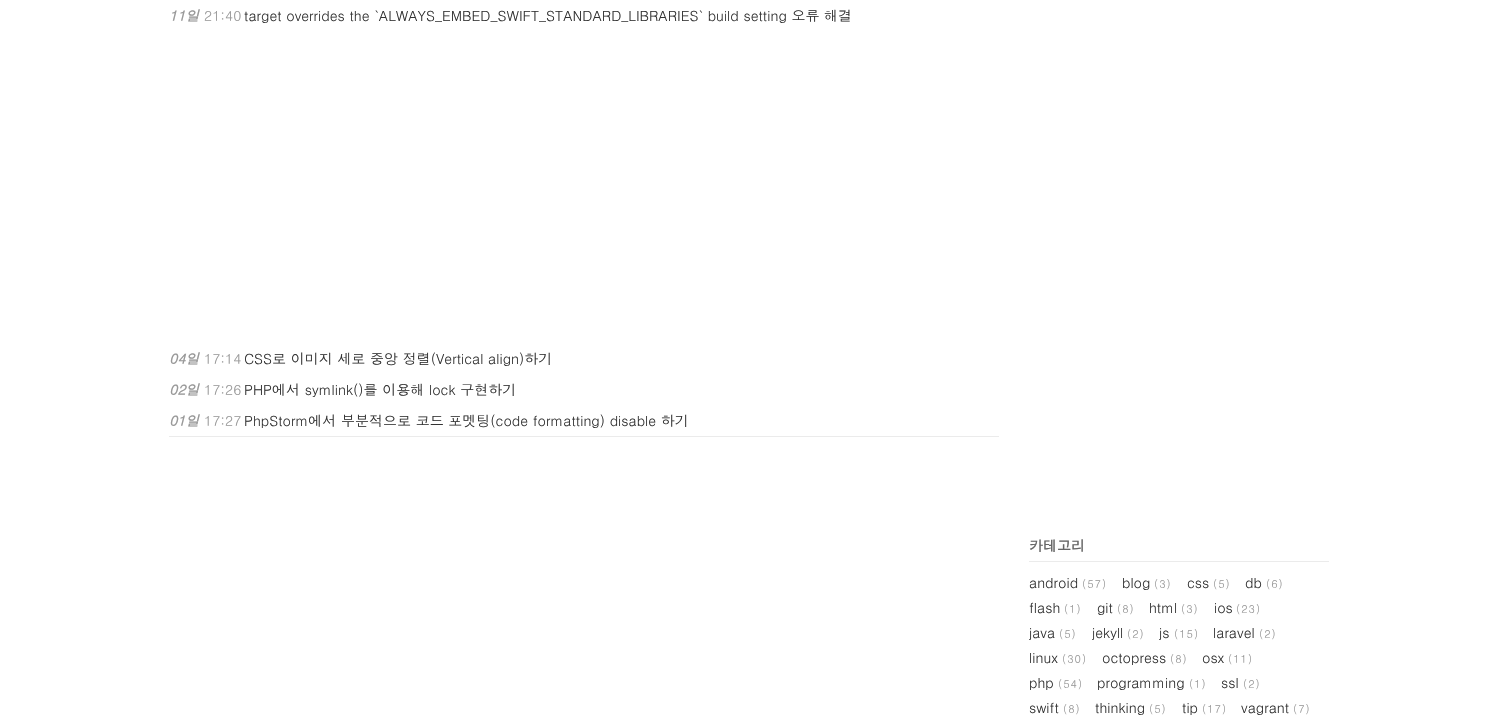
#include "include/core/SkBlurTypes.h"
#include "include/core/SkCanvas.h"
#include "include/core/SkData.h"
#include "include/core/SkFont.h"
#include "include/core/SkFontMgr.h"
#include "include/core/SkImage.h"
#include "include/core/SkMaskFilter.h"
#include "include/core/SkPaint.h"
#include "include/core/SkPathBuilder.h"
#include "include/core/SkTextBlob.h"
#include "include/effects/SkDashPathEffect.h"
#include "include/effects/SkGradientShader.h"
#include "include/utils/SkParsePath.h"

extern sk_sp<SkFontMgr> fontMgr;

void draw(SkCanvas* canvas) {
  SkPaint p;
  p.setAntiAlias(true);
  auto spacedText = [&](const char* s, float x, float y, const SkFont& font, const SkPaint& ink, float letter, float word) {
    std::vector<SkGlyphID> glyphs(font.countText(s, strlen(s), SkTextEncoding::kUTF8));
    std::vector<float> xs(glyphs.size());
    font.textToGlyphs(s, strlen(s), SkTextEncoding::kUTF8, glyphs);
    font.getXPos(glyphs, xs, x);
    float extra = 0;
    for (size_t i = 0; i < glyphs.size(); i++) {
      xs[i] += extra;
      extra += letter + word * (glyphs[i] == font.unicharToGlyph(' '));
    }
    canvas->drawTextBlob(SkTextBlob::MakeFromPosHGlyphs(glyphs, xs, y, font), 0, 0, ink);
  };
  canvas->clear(SK_ColorWHITE);
  p.setColor(SkColorSetRGB(235, 235, 235));
  canvas->drawRect(SkRect::MakeLTRB(169, 436, 999, 437), p);
  canvas->drawRect(SkRect::MakeLTRB(1029, 561, 1329, 562), p);
  SkFont font1(fontMgr->matchFamilyStyle("Dotum", SkFontStyle::BoldItalic()), 14);
  font1.setSubpixel(true);
  p.setColor(SkColorSetRGB(153, 153, 153));
  canvas->drawString("11일", 169, 21, font1, p);
  SkFont font2(fontMgr->matchFamilyStyle("Dotum", SkFontStyle::Normal()), 14);
  font2.setSubpixel(true);
  canvas->drawString("21:40", 204, 21, font2, p);
  p.setColor(SkColorSetRGB(51, 51, 51));
  canvas->drawString("target overrides the `ALWAYS_EMBED_SWIFT_STANDARD_LIBRARIES` build setting 오류 해결", 244, 21, font2, p);
  p.setColor(SkColorSetRGB(153, 153, 153));
  canvas->drawString("04일", 169, 364, font1, p);
  canvas->drawString("17:14", 204, 364, font2, p);
  p.setColor(SkColorSetRGB(51, 51, 51));
  canvas->drawString("CSS로 이미지 세로 중앙 정렬(Vertical align)하기", 244, 364, font2, p);
  p.setColor(SkColorSetRGB(153, 153, 153));
  canvas->drawString("02일", 169, 395, font1, p);
  canvas->drawString("17:26", 204, 395, font2, p);
  p.setColor(SkColorSetRGB(51, 51, 51));
  canvas->drawString("PHP에서 symlink()를 이용해 lock 구현하기", 244, 395, font2, p);
  p.setColor(SkColorSetRGB(153, 153, 153));
  canvas->drawString("01일", 169, 426, font1, p);
  canvas->drawString("17:27", 204, 426, font2, p);
  p.setColor(SkColorSetRGB(51, 51, 51));
  canvas->drawString("PhpStorm에서 부분적으로 코드 포멧팅(code formatting) disable 하기", 244, 426, font2, p);
  SkFont font3(fontMgr->matchFamilyStyle("Dotum", SkFontStyle::Bold()), 14);
  font3.setSubpixel(true);
  p.setColor(SkColorSetRGB(102, 102, 102));
  canvas->drawString("카테고리", 1029, 551, font3, p);
  p.setColor(SkColorSetRGB(51, 51, 51));
  canvas->drawString("android", 1029, 588, font2, p);
  SkFont font4(fontMgr->matchFamilyStyle("Dotum", SkFontStyle::Normal()), 11);
  font4.setSubpixel(true);
  p.setColor(SkColorSetRGB(153, 153, 153));
  spacedText("(57)", 1082, 588, font4, p, 1, 0);
  p.setColor(SkColorSetRGB(51, 51, 51));
  canvas->drawString("blog", 1122, 588, font2, p);
  p.setColor(SkColorSetRGB(153, 153, 153));
  spacedText("(3)", 1154, 588, font4, p, 1, 0);
  p.setColor(SkColorSetRGB(51, 51, 51));
  canvas->drawString("css", 1187, 588, font2, p);
  p.setColor(SkColorSetRGB(153, 153, 153));
  spacedText("(5)", 1213, 588, font4, p, 1, 0);
  p.setColor(SkColorSetRGB(51, 51, 51));
  canvas->drawString("db", 1245, 588, font2, p);
  p.setColor(SkColorSetRGB(153, 153, 153));
  spacedText("(6)", 1266, 588, font4, p, 1, 0);
  p.setColor(SkColorSetRGB(51, 51, 51));
  canvas->drawString("flash", 1029, 613, font2, p);
  p.setColor(SkColorSetRGB(153, 153, 153));
  spacedText("(1)", 1064, 613, font4, p, 1, 0);
  p.setColor(SkColorSetRGB(51, 51, 51));
  canvas->drawString("git", 1097, 613, font2, p);
  p.setColor(SkColorSetRGB(153, 153, 153));
  spacedText("(8)", 1117, 613, font4, p, 1, 0);
  p.setColor(SkColorSetRGB(51, 51, 51));
  canvas->drawString("html", 1149, 613, font2, p);
  p.setColor(SkColorSetRGB(153, 153, 153));
  spacedText("(3)", 1181, 613, font4, p, 1, 0);
  p.setColor(SkColorSetRGB(51, 51, 51));
  canvas->drawString("ios", 1214, 613, font2, p);
  p.setColor(SkColorSetRGB(153, 153, 153));
  spacedText("(23)", 1236, 613, font4, p, 1, 0);
  p.setColor(SkColorSetRGB(51, 51, 51));
  canvas->drawString("java", 1029, 638, font2, p);
  p.setColor(SkColorSetRGB(153, 153, 153));
  spacedText("(5)", 1059, 638, font4, p, 1, 0);
  p.setColor(SkColorSetRGB(51, 51, 51));
  canvas->drawString("jekyll", 1092, 638, font2, p);
  p.setColor(SkColorSetRGB(153, 153, 153));
  spacedText("(2)", 1127, 638, font4, p, 1, 0);
  p.setColor(SkColorSetRGB(51, 51, 51));
  canvas->drawString("js", 1159, 638, font2, p);
  p.setColor(SkColorSetRGB(153, 153, 153));
  spacedText("(15)", 1174, 638, font4, p, 1, 0);
  p.setColor(SkColorSetRGB(51, 51, 51));
  canvas->drawString("laravel", 1213, 638, font2, p);
  p.setColor(SkColorSetRGB(153, 153, 153));
  spacedText("(2)", 1259, 638, font4, p, 1, 0);
  p.setColor(SkColorSetRGB(51, 51, 51));
  canvas->drawString("linux", 1029, 663, font2, p);
  p.setColor(SkColorSetRGB(153, 153, 153));
  spacedText("(30)", 1062, 663, font4, p, 1, 0);
  p.setColor(SkColorSetRGB(51, 51, 51));
  canvas->drawString("octopress", 1102, 663, font2, p);
  p.setColor(SkColorSetRGB(153, 153, 153));
  spacedText("(8)", 1170, 663, font4, p, 1, 0);
  p.setColor(SkColorSetRGB(51, 51, 51));
  canvas->drawString("osx", 1202, 663, font2, p);
  p.setColor(SkColorSetRGB(153, 153, 153));
  spacedText("(11)", 1228, 663, font4, p, 1, 0);
  p.setColor(SkColorSetRGB(51, 51, 51));
  canvas->drawString("php", 1029, 688, font2, p);
  p.setColor(SkColorSetRGB(153, 153, 153));
  spacedText("(54)", 1058, 688, font4, p, 1, 0);
  p.setColor(SkColorSetRGB(51, 51, 51));
  canvas->drawString("programming", 1097, 688, font2, p);
  p.setColor(SkColorSetRGB(153, 153, 153));
  spacedText("(1)", 1189, 688, font4, p, 1, 0);
  p.setColor(SkColorSetRGB(51, 51, 51));
  canvas->drawString("ssl", 1221, 688, font2, p);
  p.setColor(SkColorSetRGB(153, 153, 153));
  spacedText("(2)", 1243, 688, font4, p, 1, 0);
  p.setColor(SkColorSetRGB(51, 51, 51));
  canvas->drawString("swift", 1029, 713, font2, p);
  p.setColor(SkColorSetRGB(153, 153, 153));
  spacedText("(8)", 1063, 713, font4, p, 1, 0);
  p.setColor(SkColorSetRGB(51, 51, 51));
  canvas->drawString("thinking", 1095, 713, font2, p);
  p.setColor(SkColorSetRGB(153, 153, 153));
  spacedText("(5)", 1149, 713, font4, p, 1, 0);
  p.setColor(SkColorSetRGB(51, 51, 51));
  canvas->drawString("tip", 1182, 713, font2, p);
  p.setColor(SkColorSetRGB(153, 153, 153));
  spacedText("(17)", 1202, 713, font4, p, 1, 0);
  p.setColor(SkColorSetRGB(51, 51, 51));
  canvas->drawString("vagrant", 1241, 713, font2, p);
  p.setColor(SkColorSetRGB(153, 153, 153));
  spacedText("(7)", 1293, 713, font4, p, 1, 0);
}
